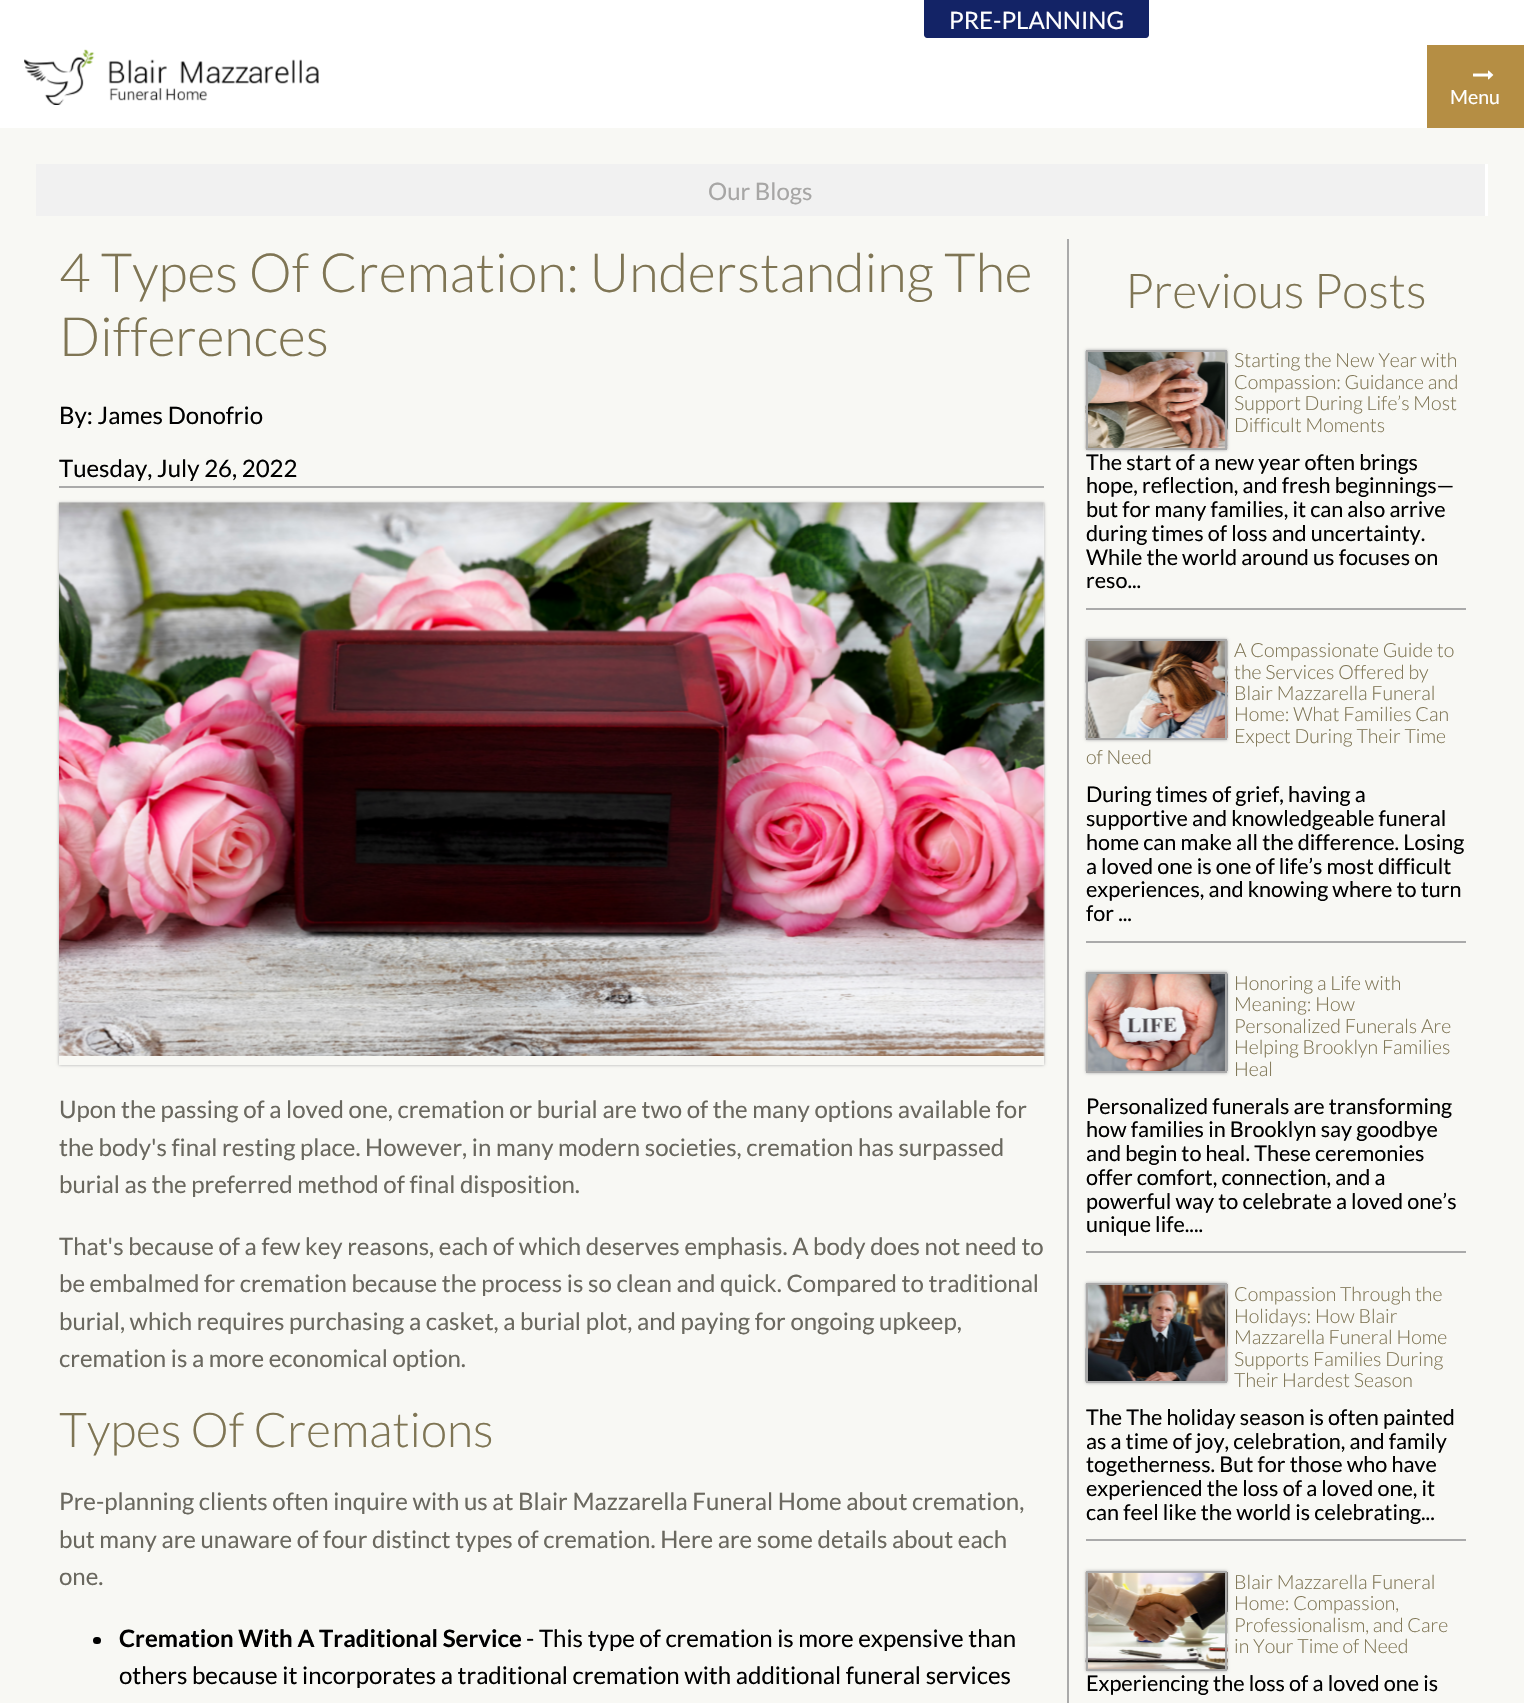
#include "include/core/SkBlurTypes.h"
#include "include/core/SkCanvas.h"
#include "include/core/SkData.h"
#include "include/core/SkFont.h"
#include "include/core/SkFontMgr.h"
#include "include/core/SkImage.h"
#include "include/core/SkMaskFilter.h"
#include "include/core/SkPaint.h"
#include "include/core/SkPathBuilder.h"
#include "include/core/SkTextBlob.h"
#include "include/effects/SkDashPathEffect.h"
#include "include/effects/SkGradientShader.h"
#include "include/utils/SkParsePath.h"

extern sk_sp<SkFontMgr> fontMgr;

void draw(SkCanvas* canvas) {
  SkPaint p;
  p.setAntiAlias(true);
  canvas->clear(SK_ColorWHITE);
  p.setColor(SkColorSetRGB(19, 35, 102));
  canvas->drawPath(SkPathBuilder().moveTo(924, 0).lineTo(1149, 0).lineTo(1149, 35).cubicTo(1149, 36.5f, 1147.5f, 38, 1146, 38).lineTo(927, 38).cubicTo(925.5f, 38, 924, 36.5f, 924, 35).close().detach(), p);
  canvas->drawImageRect(SkImages::DeferredFromEncodedData(SkData::MakeFromFileName("images/1.png")), SkRect::MakeLTRB(24, 49, 319, 105), SkSamplingOptions());
  p.setColor(SkColorSetRGB(181, 142, 68));
  canvas->drawRect(SkRect::MakeLTRB(1427, 45, 1524, 128), p);
  canvas->drawImageRect(SkImages::DeferredFromEncodedData(SkData::MakeFromFileName("images/2.png")), SkRect::MakeLTRB(1473, 70, 1494, 80), SkSamplingOptions());
  p.setColor(SkColorSetRGB(248, 248, 244));
  canvas->drawRect(SkRect::MakeLTRB(0, 128, 1524, 1703), p);
  p.setColor(SkColorSetRGB(241, 241, 241));
  canvas->drawRect(SkRect::MakeLTRB(36, 164, 1485, 216), p);
  p.setColor(SK_ColorWHITE);
  canvas->drawRect(SkRect::MakeLTRB(1485, 164, 1488, 216), p);
  p.setColor(SkColorSetRGB(170, 170, 170));
  canvas->drawRect(SkRect::MakeLTRB(1067, 239, 1069, 1703), p);
  canvas->drawRect(SkRect::MakeLTRB(59, 486, 1044, 488), p);
  canvas->save();
  canvas->clipPath(SkPathBuilder(SkPathFillType::kEvenOdd).moveTo(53, 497).lineTo(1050, 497).lineTo(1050, 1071).lineTo(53, 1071).close().moveTo(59, 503).lineTo(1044, 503).lineTo(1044, 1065).lineTo(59, 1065).close().detach(), true);
  p.setMaskFilter(SkMaskFilter::MakeBlur(kNormal_SkBlurStyle, 1.5f));
  canvas->drawRect(SkRect::MakeLTRB(59, 503, 1044, 1065), p);
  p.setMaskFilter(nullptr);
  canvas->restore();
  canvas->drawImageRect(SkImages::DeferredFromEncodedData(SkData::MakeFromFileName("images/3.png")), SkRect::MakeLTRB(59, 502, 1045, 1056), SkSamplingOptions());
  p.setColor(SK_ColorBLACK);
  canvas->drawRoundRect(SkRect::MakeLTRB(93, 1637, 101, 1644), 3.5f, 3.5f, p);
  p.setColor(SkColorSetRGB(170, 170, 170));
  canvas->drawRect(SkRect::MakeLTRB(1086, 608, 1466, 610), p);
  p.setMaskFilter(SkMaskFilter::MakeBlur(kNormal_SkBlurStyle, 1.5f));
  canvas->drawRect(SkRect::MakeLTRB(1086, 350, 1227, 450), p);
  p.setMaskFilter(nullptr);
  canvas->drawImageRect(SkImages::DeferredFromEncodedData(SkData::MakeFromFileName("images/4.png")), SkRect::MakeLTRB(1085, 351, 1228, 449), SkSamplingOptions());
  p.setStyle(SkPaint::kStroke_Style);
  p.setStrokeWidth(2);
  canvas->drawRect(SkRect::MakeLTRB(1087, 351, 1226, 449), p);
  p.setStyle(SkPaint::kFill_Style);
  canvas->drawRect(SkRect::MakeLTRB(1086, 941, 1466, 943), p);
  p.setMaskFilter(SkMaskFilter::MakeBlur(kNormal_SkBlurStyle, 1.5f));
  canvas->drawRect(SkRect::MakeLTRB(1086, 639, 1227, 740), p);
  p.setMaskFilter(nullptr);
  canvas->drawImageRect(SkImages::DeferredFromEncodedData(SkData::MakeFromFileName("images/5.png")), SkRect::MakeLTRB(1085, 640, 1228, 738), SkSamplingOptions());
  p.setStyle(SkPaint::kStroke_Style);
  canvas->drawRect(SkRect::MakeLTRB(1087, 640, 1226, 739), p);
  p.setStyle(SkPaint::kFill_Style);
  canvas->drawRect(SkRect::MakeLTRB(1086, 1251, 1466, 1253), p);
  p.setMaskFilter(SkMaskFilter::MakeBlur(kNormal_SkBlurStyle, 1.5f));
  canvas->drawRect(SkRect::MakeLTRB(1086, 972, 1227, 1073), p);
  p.setMaskFilter(nullptr);
  canvas->drawImageRect(SkImages::DeferredFromEncodedData(SkData::MakeFromFileName("images/6.png")), SkRect::MakeLTRB(1085, 973, 1228, 1071), SkSamplingOptions());
  p.setStyle(SkPaint::kStroke_Style);
  canvas->drawRect(SkRect::MakeLTRB(1087, 973, 1226, 1072), p);
  p.setStyle(SkPaint::kFill_Style);
  canvas->drawRect(SkRect::MakeLTRB(1086, 1539, 1466, 1541), p);
  p.setMaskFilter(SkMaskFilter::MakeBlur(kNormal_SkBlurStyle, 1.5f));
  canvas->drawRect(SkRect::MakeLTRB(1086, 1283, 1227, 1383), p);
  p.setMaskFilter(nullptr);
  canvas->drawImageRect(SkImages::DeferredFromEncodedData(SkData::MakeFromFileName("images/7.png")), SkRect::MakeLTRB(1085, 1284, 1228, 1382), SkSamplingOptions());
  p.setStyle(SkPaint::kStroke_Style);
  canvas->drawRect(SkRect::MakeLTRB(1087, 1284, 1226, 1382), p);
  p.setStyle(SkPaint::kFill_Style);
  p.setMaskFilter(SkMaskFilter::MakeBlur(kNormal_SkBlurStyle, 1.5f));
  canvas->drawRect(SkRect::MakeLTRB(1086, 1571, 1227, 1671), p);
  p.setMaskFilter(nullptr);
  canvas->drawImageRect(SkImages::DeferredFromEncodedData(SkData::MakeFromFileName("images/8.png")), SkRect::MakeLTRB(1085, 1572, 1228, 1670), SkSamplingOptions());
  p.setStyle(SkPaint::kStroke_Style);
  canvas->drawRect(SkRect::MakeLTRB(1087, 1572, 1226, 1670), p);
  SkFont font1(fontMgr->matchFamilyStyle("Lato", SkFontStyle::Normal()), 24);
  font1.setSubpixel(true);
  p.setStyle(SkPaint::kFill_Style);
  p.setColor(SK_ColorWHITE);
  canvas->drawString("PRE-PLANNING", 949, 29, font1, p);
  SkFont font2(fontMgr->matchFamilyStyle("Lato", SkFontStyle::Normal()), 19.5f);
  font2.setSubpixel(true);
  canvas->drawString("Menu", 1450, 104, font2, p);
  p.setColor(SkColorSetRGB(167, 166, 165));
  canvas->drawString("Our Blogs", 708, 200, font1, p);
  SkFont font3(fontMgr->matchFamilyStyle("Lato", SkFontStyle(300, SkFontStyle::kNormal_Width, SkFontStyle::kUpright_Slant)), 54);
  font3.setSubpixel(true);
  p.setColor(SkColorSetRGB(127, 117, 84));
  canvas->drawString("4 Types Of Cremation: Understanding The", 59, 292, font3, p);
  canvas->drawString("Differences", 59, 356, font3, p);
  p.setColor(SK_ColorBLACK);
  canvas->drawString("By: James Donofrio", 59, 424, font1, p);
  canvas->drawString("Tuesday, July 26, 2022", 59, 477, font1, p);
  p.setColor(SkColorSetRGB(106, 104, 95));
  canvas->drawString("Upon the passing of a loved one, cremation or burial are two of the many options available for", 59, 1118, font1, p);
  canvas->drawString("the body's final resting place. However, in many modern societies, cremation has surpassed", 59, 1156, font1, p);
  canvas->drawString("burial as the preferred method of final disposition.", 59, 1193, font1, p);
  canvas->drawString("That's because of a few key reasons, each of which deserves emphasis. A body does not need to", 59, 1255, font1, p);
  canvas->drawString("be embalmed for cremation because the process is so clean and quick. Compared to traditional", 59, 1292, font1, p);
  canvas->drawString("burial, which requires purchasing a casket, a burial plot, and paying for ongoing upkeep,", 59, 1330, font1, p);
  canvas->drawString("cremation is a more economical option.", 59, 1367, font1, p);
  SkFont font4(fontMgr->matchFamilyStyle("Lato", SkFontStyle(300, SkFontStyle::kNormal_Width, SkFontStyle::kUpright_Slant)), 48);
  font4.setSubpixel(true);
  p.setColor(SkColorSetRGB(127, 117, 84));
  canvas->drawString("Types Of Cremations", 59, 1447, font4, p);
  p.setColor(SkColorSetRGB(106, 104, 95));
  canvas->drawString("Pre-planning clients often inquire with us at Blair Mazzarella Funeral Home about cremation,", 59, 1510, font1, p);
  canvas->drawString("but many are unaware of four distinct types of cremation. Here are some details about each", 59, 1548, font1, p);
  canvas->drawString("one.", 59, 1585, font1, p);
  SkFont font5(fontMgr->matchFamilyStyle("Lato", SkFontStyle::Bold()), 24);
  font5.setSubpixel(true);
  p.setColor(SK_ColorBLACK);
  canvas->drawString("Cremation With A Traditional Service", 119, 1647, font5, p);
  canvas->drawString("- This type of cremation is more expensive than", 526, 1647, font1, p);
  canvas->drawString("others because it incorporates a traditional cremation with additional funeral services", 119, 1684, font1, p);
  p.setColor(SkColorSetRGB(127, 117, 84));
  canvas->drawString("Previous Posts", 1125, 308, font4, p);
  SkFont font6(fontMgr->matchFamilyStyle("Lato", SkFontStyle(300, SkFontStyle::kNormal_Width, SkFontStyle::kUpright_Slant)), 19.5f);
  font6.setSubpixel(true);
  canvas->drawString("Starting the New Year with", 1234, 367, font6, p);
  canvas->drawString("Compassion: Guidance and", 1234, 389, font6, p);
  canvas->drawString("Support During Life’s Most", 1234, 410, font6, p);
  canvas->drawString("Difficult Moments", 1234, 432, font6, p);
  SkFont font7(fontMgr->matchFamilyStyle("Lato", SkFontStyle::Normal()), 21.6f);
  font7.setSubpixel(true);
  p.setColor(SK_ColorBLACK);
  canvas->drawString("The start of a new year often brings", 1086, 470, font7, p);
  canvas->drawString("hope, reflection, and fresh beginnings—", 1086, 493, font7, p);
  canvas->drawString("but for many families, it can also arrive", 1086, 517, font7, p);
  canvas->drawString("during times of loss and uncertainty.", 1086, 541, font7, p);
  canvas->drawString("While the world around us focuses on", 1086, 565, font7, p);
  canvas->drawString("reso...", 1086, 588, font7, p);
  p.setColor(SkColorSetRGB(127, 117, 84));
  canvas->drawString("A Compassionate Guide to", 1234, 657, font6, p);
  canvas->drawString("the Services Offered by", 1234, 679, font6, p);
  canvas->drawString("Blair Mazzarella Funeral", 1234, 700, font6, p);
  canvas->drawString("Home: What Families Can", 1234, 721, font6, p);
  canvas->drawString("Expect During Their Time", 1234, 743, font6, p);
  canvas->drawString("of Need", 1086, 764, font6, p);
  p.setColor(SK_ColorBLACK);
  canvas->drawString("During times of grief, having a", 1086, 802, font7, p);
  canvas->drawString("supportive and knowledgeable funeral", 1086, 826, font7, p);
  canvas->drawString("home can make all the difference. Losing", 1086, 850, font7, p);
  canvas->drawString("a loved one is one of life’s most difficult", 1086, 874, font7, p);
  canvas->drawString("experiences, and knowing where to turn", 1086, 897, font7, p);
  canvas->drawString("for ...", 1086, 921, font7, p);
  p.setColor(SkColorSetRGB(127, 117, 84));
  canvas->drawString("Honoring a Life with", 1234, 990, font6, p);
  canvas->drawString("Meaning: How", 1234, 1011, font6, p);
  canvas->drawString("Personalized Funerals Are", 1234, 1033, font6, p);
  canvas->drawString("Helping Brooklyn Families", 1234, 1054, font6, p);
  canvas->drawString("Heal", 1234, 1076, font6, p);
  p.setColor(SK_ColorBLACK);
  canvas->drawString("Personalized funerals are transforming", 1086, 1114, font7, p);
  canvas->drawString("how families in Brooklyn say goodbye", 1086, 1137, font7, p);
  canvas->drawString("and begin to heal. These ceremonies", 1086, 1161, font7, p);
  canvas->drawString("offer comfort, connection, and a", 1086, 1185, font7, p);
  canvas->drawString("powerful way to celebrate a loved one’s", 1086, 1209, font7, p);
  canvas->drawString("unique life....", 1086, 1232, font7, p);
  p.setColor(SkColorSetRGB(127, 117, 84));
  canvas->drawString("Compassion Through the", 1234, 1301, font6, p);
  canvas->drawString("Holidays: How Blair", 1234, 1323, font6, p);
  canvas->drawString("Mazzarella Funeral Home", 1234, 1344, font6, p);
  canvas->drawString("Supports Families During", 1234, 1366, font6, p);
  canvas->drawString("Their Hardest Season", 1234, 1387, font6, p);
  p.setColor(SK_ColorBLACK);
  canvas->drawString("The The holiday season is often painted", 1086, 1425, font7, p);
  canvas->drawString("as a time of joy, celebration, and family", 1086, 1449, font7, p);
  canvas->drawString("togetherness. But for those who have", 1086, 1472, font7, p);
  canvas->drawString("experienced the loss of a loved one, it", 1086, 1496, font7, p);
  canvas->drawString("can feel like the world is celebrating...", 1086, 1520, font7, p);
  p.setColor(SkColorSetRGB(127, 117, 84));
  canvas->drawString("Blair Mazzarella Funeral", 1234, 1589, font6, p);
  canvas->drawString("Home: Compassion,", 1234, 1610, font6, p);
  canvas->drawString("Professionalism, and Care", 1234, 1632, font6, p);
  canvas->drawString("in Your Time of Need", 1234, 1653, font6, p);
  p.setColor(SK_ColorBLACK);
  canvas->drawString("Experiencing the loss of a loved one is", 1086, 1691, font7, p);
}
